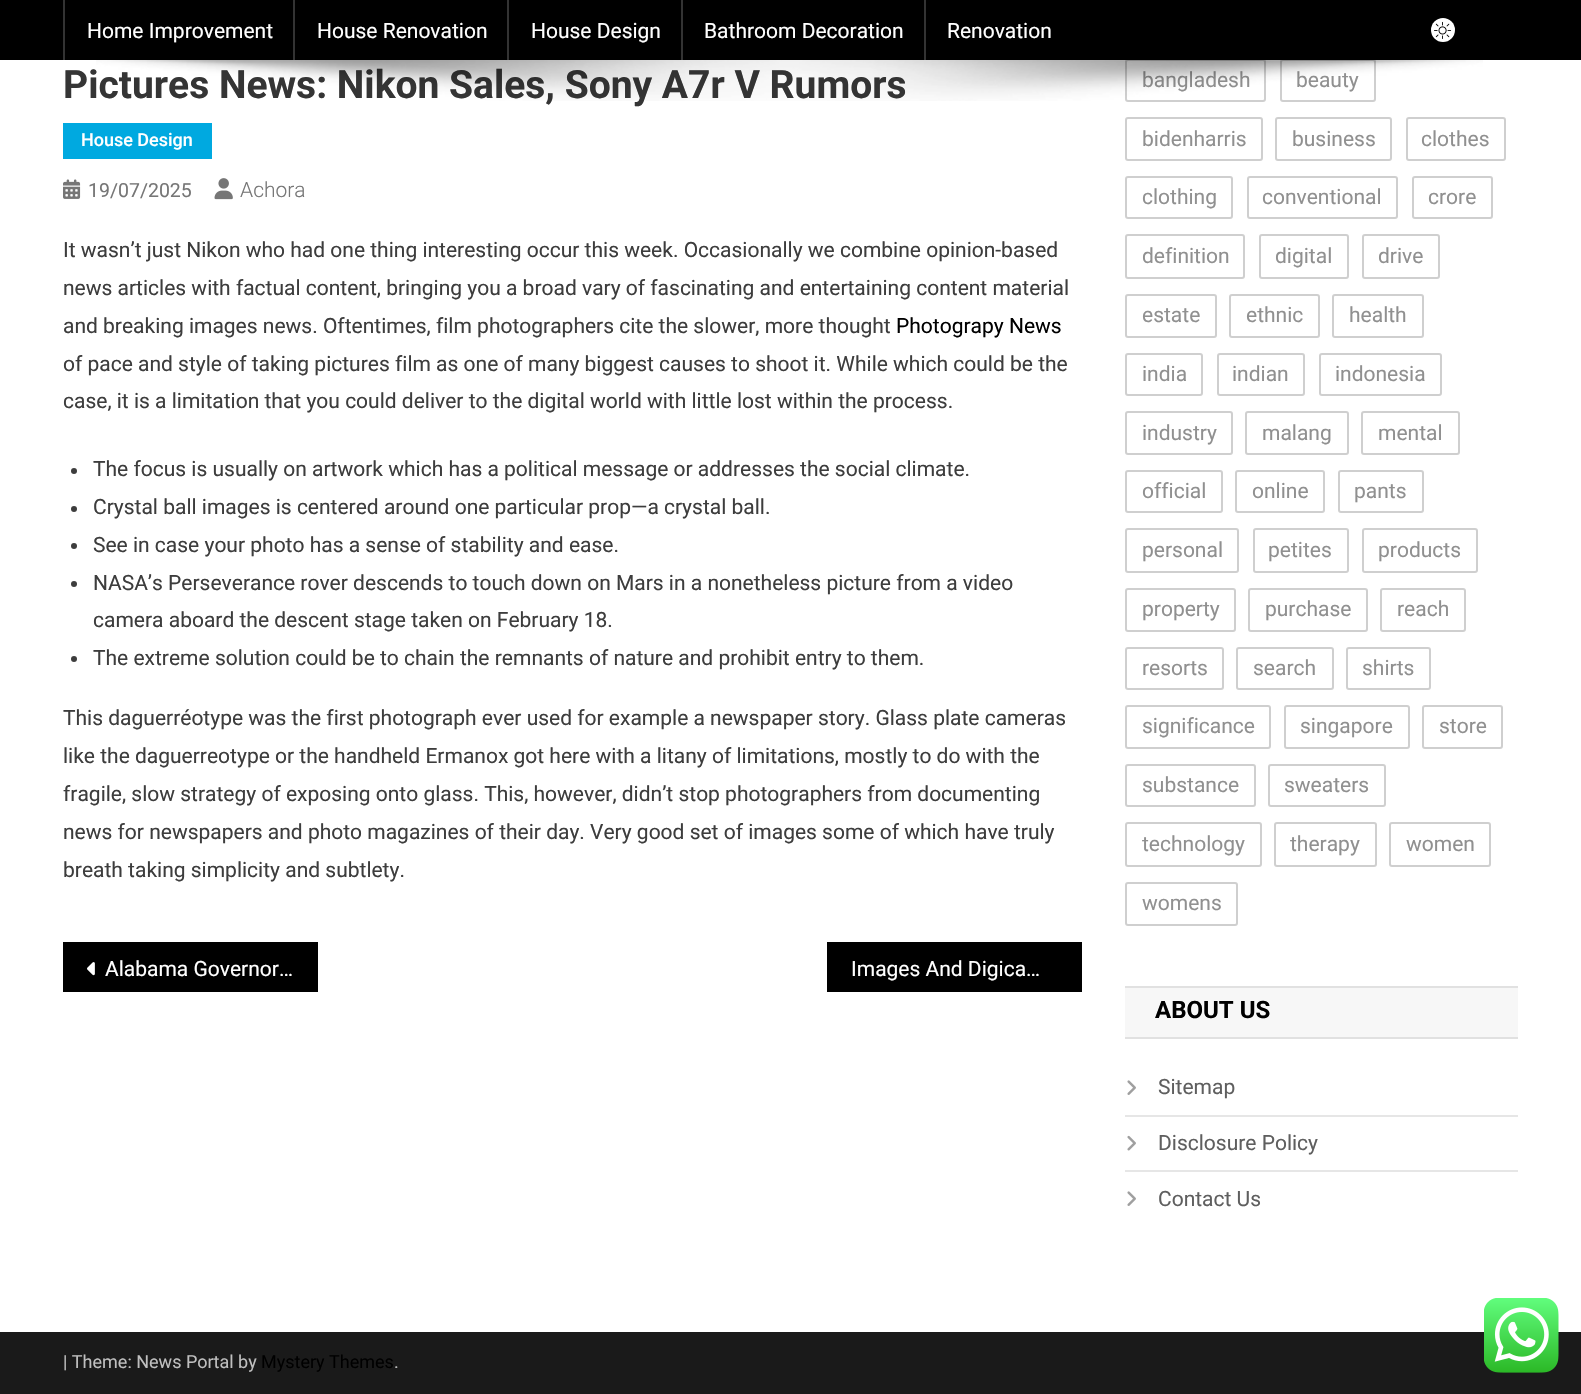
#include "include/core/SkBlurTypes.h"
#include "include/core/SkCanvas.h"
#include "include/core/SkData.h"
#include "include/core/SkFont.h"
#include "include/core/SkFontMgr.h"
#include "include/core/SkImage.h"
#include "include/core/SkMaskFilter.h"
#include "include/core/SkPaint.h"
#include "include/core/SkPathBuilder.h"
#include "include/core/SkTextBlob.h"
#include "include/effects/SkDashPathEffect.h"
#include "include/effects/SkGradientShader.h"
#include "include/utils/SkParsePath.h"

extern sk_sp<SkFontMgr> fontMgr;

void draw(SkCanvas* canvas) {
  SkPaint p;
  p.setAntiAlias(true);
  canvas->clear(SK_ColorWHITE);
  p.setStyle(SkPaint::kStroke_Style);
  p.setStrokeWidth(2);
  p.setColor(SkColorSetRGB(207, 207, 207));
  canvas->drawRoundRect(SkRect::MakeLTRB(1126, 60, 1265, 101), 2, 2, p);
  canvas->drawRoundRect(SkRect::MakeLTRB(1281, 60, 1375, 101), 2, 2, p);
  p.setStyle(SkPaint::kFill_Style);
  p.setColor(SK_ColorBLACK);
  canvas->drawRect(SkRect::MakeLTRB(0, 0, 1581, 60), p);
  p.setColor(SkColorSetRGB(51, 51, 51));
  canvas->drawRect(SkRect::MakeLTRB(63, 0, 65, 60), p);
  canvas->drawRect(SkRect::MakeLTRB(293, 0, 295, 60), p);
  canvas->drawRect(SkRect::MakeLTRB(507, 0, 509, 60), p);
  canvas->drawRect(SkRect::MakeLTRB(681, 0, 683, 60), p);
  canvas->drawRect(SkRect::MakeLTRB(924, 0, 926, 60), p);
  p.setColor(SK_ColorWHITE);
  canvas->drawCircle(1443, 30, 12, p);
  canvas->drawImageRect(SkImages::DeferredFromEncodedData(SkData::MakeFromFileName("images/1.png")), SkRect::MakeLTRB(1434, 21, 1452, 39), SkSamplingOptions());
  p.setColor(SkColorSetRGB(0, 169, 224));
  canvas->drawRect(SkRect::MakeLTRB(63, 123, 212, 159), p);
  canvas->drawImageRect(SkImages::DeferredFromEncodedData(SkData::MakeFromFileName("images/3.png")), SkRect::MakeLTRB(63, 179, 81, 199), SkSamplingOptions());
  canvas->drawImageRect(SkImages::DeferredFromEncodedData(SkData::MakeFromFileName("images/4.png")), SkRect::MakeLTRB(214, 178, 233, 200), SkSamplingOptions());
  p.setColor(SkColorSetRGB(61, 61, 61));
  canvas->drawCircle(74, 471, 3, p);
  canvas->drawCircle(74, 509, 3, p);
  canvas->drawCircle(74, 546, 3, p);
  canvas->drawCircle(74, 584, 3, p);
  canvas->drawCircle(74, 659, 3, p);
  p.setColor(SK_ColorBLACK);
  canvas->drawRect(SkRect::MakeLTRB(63, 942, 318, 992), p);
  canvas->drawImageRect(SkImages::DeferredFromEncodedData(SkData::MakeFromFileName("images/5.png")), SkRect::MakeLTRB(87, 962, 95, 976), SkSamplingOptions());
  canvas->drawRect(SkRect::MakeLTRB(827, 942, 1082, 992), p);
  p.setStyle(SkPaint::kStroke_Style);
  p.setColor(SkColorSetRGB(207, 207, 207));
  canvas->drawRoundRect(SkRect::MakeLTRB(1126, 118, 1262, 160), 2, 2, p);
  canvas->drawRoundRect(SkRect::MakeLTRB(1276, 118, 1391, 160), 2, 2, p);
  canvas->drawRoundRect(SkRect::MakeLTRB(1407, 118, 1505, 160), 2, 2, p);
  canvas->drawRoundRect(SkRect::MakeLTRB(1126, 177, 1232, 218), 2, 2, p);
  canvas->drawRoundRect(SkRect::MakeLTRB(1248, 177, 1397, 218), 2, 2, p);
  canvas->drawRoundRect(SkRect::MakeLTRB(1413, 177, 1492, 218), 2, 2, p);
  canvas->drawRoundRect(SkRect::MakeLTRB(1126, 235, 1244, 278), 2, 2, p);
  canvas->drawRoundRect(SkRect::MakeLTRB(1260, 235, 1348, 278), 2, 2, p);
  canvas->drawRoundRect(SkRect::MakeLTRB(1363, 235, 1439, 278), 2, 2, p);
  canvas->drawRoundRect(SkRect::MakeLTRB(1126, 295, 1216, 337), 2, 2, p);
  canvas->drawRoundRect(SkRect::MakeLTRB(1230, 295, 1319, 337), 2, 2, p);
  canvas->drawRoundRect(SkRect::MakeLTRB(1333, 295, 1423, 337), 2, 2, p);
  canvas->drawRoundRect(SkRect::MakeLTRB(1126, 354, 1202, 395), 2, 2, p);
  canvas->drawRoundRect(SkRect::MakeLTRB(1218, 354, 1304, 395), 2, 2, p);
  canvas->drawRoundRect(SkRect::MakeLTRB(1320, 354, 1441, 395), 2, 2, p);
  canvas->drawRoundRect(SkRect::MakeLTRB(1126, 412, 1232, 454), 2, 2, p);
  canvas->drawRoundRect(SkRect::MakeLTRB(1246, 412, 1348, 454), 2, 2, p);
  canvas->drawRoundRect(SkRect::MakeLTRB(1362, 412, 1459, 454), 2, 2, p);
  canvas->drawRoundRect(SkRect::MakeLTRB(1126, 471, 1222, 512), 2, 2, p);
  canvas->drawRoundRect(SkRect::MakeLTRB(1236, 471, 1324, 512), 2, 2, p);
  canvas->drawRoundRect(SkRect::MakeLTRB(1339, 471, 1423, 512), 2, 2, p);
  canvas->drawRoundRect(SkRect::MakeLTRB(1126, 529, 1238, 572), 2, 2, p);
  canvas->drawRoundRect(SkRect::MakeLTRB(1254, 529, 1348, 572), 2, 2, p);
  canvas->drawRoundRect(SkRect::MakeLTRB(1363, 529, 1477, 572), 2, 2, p);
  canvas->drawRoundRect(SkRect::MakeLTRB(1126, 589, 1235, 631), 2, 2, p);
  canvas->drawRoundRect(SkRect::MakeLTRB(1249, 589, 1367, 631), 2, 2, p);
  canvas->drawRoundRect(SkRect::MakeLTRB(1381, 589, 1465, 631), 2, 2, p);
  canvas->drawRoundRect(SkRect::MakeLTRB(1126, 648, 1223, 689), 2, 2, p);
  canvas->drawRoundRect(SkRect::MakeLTRB(1237, 648, 1333, 689), 2, 2, p);
  canvas->drawRoundRect(SkRect::MakeLTRB(1347, 648, 1430, 689), 2, 2, p);
  canvas->drawRoundRect(SkRect::MakeLTRB(1126, 706, 1270, 748), 2, 2, p);
  canvas->drawRoundRect(SkRect::MakeLTRB(1285, 706, 1409, 748), 2, 2, p);
  canvas->drawRoundRect(SkRect::MakeLTRB(1423, 706, 1502, 748), 2, 2, p);
  canvas->drawRoundRect(SkRect::MakeLTRB(1126, 765, 1255, 806), 2, 2, p);
  canvas->drawRoundRect(SkRect::MakeLTRB(1269, 765, 1385, 806), 2, 2, p);
  canvas->drawRoundRect(SkRect::MakeLTRB(1126, 823, 1261, 866), 2, 2, p);
  canvas->drawRoundRect(SkRect::MakeLTRB(1275, 823, 1376, 866), 2, 2, p);
  canvas->drawRoundRect(SkRect::MakeLTRB(1390, 823, 1490, 866), 2, 2, p);
  canvas->drawRoundRect(SkRect::MakeLTRB(1126, 883, 1237, 925), 2, 2, p);
  p.setStyle(SkPaint::kFill_Style);
  p.setColor(SkColorSetRGB(247, 247, 247));
  canvas->drawRect(SkRect::MakeLTRB(1125, 988, 1518, 1037), p);
  p.setColor(SkColorSetRGB(225, 225, 225));
  canvas->drawRect(SkRect::MakeLTRB(1125, 986, 1518, 988), p);
  canvas->drawRect(SkRect::MakeLTRB(1125, 1037, 1518, 1039), p);
  p.setColor(SkColorSetRGB(230, 230, 230));
  canvas->drawRect(SkRect::MakeLTRB(1125, 1115, 1518, 1117), p);
  canvas->drawImageRect(SkImages::DeferredFromEncodedData(SkData::MakeFromFileName("images/6.png")), SkRect::MakeLTRB(1127, 1080, 1136, 1095), SkSamplingOptions());
  canvas->drawRect(SkRect::MakeLTRB(1125, 1170, 1518, 1172), p);
  canvas->drawImageRect(SkImages::DeferredFromEncodedData(SkData::MakeFromFileName("images/7.png")), SkRect::MakeLTRB(1127, 1135, 1136, 1151), SkSamplingOptions());
  canvas->drawImageRect(SkImages::DeferredFromEncodedData(SkData::MakeFromFileName("images/6.png")), SkRect::MakeLTRB(1127, 1191, 1136, 1206), SkSamplingOptions());
  p.setColor(SkColorSetRGB(26, 26, 26));
  canvas->drawRect(SkRect::MakeLTRB(0, 1332, 1581, 1394), p);
  canvas->drawImageRect(SkImages::DeferredFromEncodedData(SkData::MakeFromFileName("images/8.png")), SkRect::MakeLTRB(1484, 1298, 1559, 1373), SkSamplingOptions());
  SkFont font1(fontMgr->matchFamilyStyle("Roboto", SkFontStyle::Normal()), 21);
  font1.setSubpixel(true);
  p.setColor(SK_ColorWHITE);
  canvas->drawString("Home Improvement", 87, 38, font1, p);
  canvas->drawString("House Renovation", 317, 38, font1, p);
  canvas->drawString("House Design", 531, 38, font1, p);
  canvas->drawString("Bathroom Decoration", 704, 38, font1, p);
  canvas->drawString("Renovation", 947, 38, font1, p);
  SkFont font2(fontMgr->matchFamilyStyle("Roboto", SkFontStyle::Bold()), 39);
  font2.setSubpixel(true);
  p.setColor(SkColorSetRGB(53, 53, 53));
  canvas->drawString("Pictures News: Nikon Sales, Sony A7r V Rumors", 63, 98, font2, p);
  SkFont font3(fontMgr->matchFamilyStyle("Roboto", SkFontStyle(500, SkFontStyle::kNormal_Width, SkFontStyle::kUpright_Slant)), 18);
  font3.setSubpixel(true);
  p.setColor(SK_ColorWHITE);
  canvas->drawString("House Design", 81, 146, font3, p);
  SkFont font4(fontMgr->matchFamilyStyle("Roboto", SkFontStyle::Normal()), 19.5f);
  font4.setSubpixel(true);
  p.setColor(SkColorSetRGB(118, 118, 118));
  canvas->drawString("19/07/2025", 88, 197, font4, p);
  SkFont font5(fontMgr->matchFamilyStyle("Roboto", SkFontStyle(300, SkFontStyle::kNormal_Width, SkFontStyle::kUpright_Slant)), 21);
  font5.setSubpixel(true);
  canvas->drawString("Achora", 240, 197, font5, p);
  p.setColor(SkColorSetRGB(61, 61, 61));
  canvas->drawString("It wasn’t just Nikon who had one thing interesting occur this week. Occasionally we combine opinion-based", 63, 257, font1, p);
  canvas->drawString("news articles with factual content, bringing you a broad vary of fascinating and entertaining content material", 63, 295, font1, p);
  canvas->drawString("and breaking images news. Oftentimes, film photographers cite the slower, more thought", 63, 333, font1, p);
  p.setColor(SK_ColorBLACK);
  canvas->drawString("Photograpy News", 896, 333, font1, p);
  p.setColor(SkColorSetRGB(61, 61, 61));
  canvas->drawString("of pace and style of taking pictures film as one of many biggest causes to shoot it. While which could be the", 63, 371, font1, p);
  canvas->drawString("case, it is a limitation that you could deliver to the digital world with little lost within the process.", 63, 408, font1, p);
  canvas->drawString("The focus is usually on artwork which has a political message or addresses the social climate.", 93, 476, font1, p);
  canvas->drawString("Crystal ball images is centered around one particular prop—a crystal ball.", 93, 514, font1, p);
  canvas->drawString("See in case your photo has a sense of stability and ease.", 93, 552, font1, p);
  canvas->drawString("NASA’s Perseverance rover descends to touch down on Mars in a nonetheless picture from a video", 93, 590, font1, p);
  canvas->drawString("camera aboard the descent stage taken on February 18.", 93, 627, font1, p);
  canvas->drawString("The extreme solution could be to chain the remnants of nature and prohibit entry to them.", 93, 665, font1, p);
  canvas->drawString("This daguerréotype was the first photograph ever used for example a newspaper story. Glass plate cameras", 63, 725, font1, p);
  canvas->drawString("like the daguerreotype or the handheld Ermanox got here with a litany of limitations, mostly to do with the", 63, 763, font1, p);
  canvas->drawString("fragile, slow strategy of exposing onto glass. This, however, didn’t stop photographers from documenting", 63, 801, font1, p);
  canvas->drawString("news for newspapers and photo magazines of their day. Very good set of images some of which have truly", 63, 839, font1, p);
  canvas->drawString("breath taking simplicity and subtlety.", 63, 877, font1, p);
  p.setColor(SK_ColorWHITE);
  canvas->drawString("Alabama Governor…", 105, 976, font1, p);
  canvas->drawString("Images And Digica…", 851, 976, font1, p);
  p.setColor(SkColorSetRGB(144, 144, 144));
  canvas->drawString("bangladesh", 1142, 87, font1, p);
  canvas->drawString("beauty", 1296, 87, font1, p);
  canvas->drawImageRect(SkImages::DeferredFromEncodedData(SkData::MakeFromFileName("images/2.png")), SkRect::MakeLTRB(96, 60, 1483, 101), SkSamplingOptions());
  canvas->drawString("bidenharris", 1142, 146, font1, p);
  canvas->drawString("business", 1292, 146, font1, p);
  canvas->drawString("clothes", 1421, 146, font1, p);
  canvas->drawString("clothing", 1142, 204, font1, p);
  canvas->drawString("conventional", 1262, 204, font1, p);
  canvas->drawString("crore", 1428, 204, font1, p);
  canvas->drawString("definition", 1142, 263, font1, p);
  canvas->drawString("digital", 1275, 263, font1, p);
  canvas->drawString("drive", 1378, 263, font1, p);
  canvas->drawString("estate", 1142, 322, font1, p);
  canvas->drawString("ethnic", 1246, 322, font1, p);
  canvas->drawString("health", 1349, 322, font1, p);
  canvas->drawString("india", 1142, 381, font1, p);
  canvas->drawString("indian", 1232, 381, font1, p);
  canvas->drawString("indonesia", 1335, 381, font1, p);
  canvas->drawString("industry", 1142, 440, font1, p);
  canvas->drawString("malang", 1262, 440, font1, p);
  canvas->drawString("mental", 1378, 440, font1, p);
  canvas->drawString("official", 1142, 498, font1, p);
  canvas->drawString("online", 1252, 498, font1, p);
  canvas->drawString("pants", 1354, 498, font1, p);
  canvas->drawString("personal", 1142, 557, font1, p);
  canvas->drawString("petites", 1268, 557, font1, p);
  canvas->drawString("products", 1378, 557, font1, p);
  canvas->drawString("property", 1142, 616, font1, p);
  canvas->drawString("purchase", 1265, 616, font1, p);
  canvas->drawString("reach", 1397, 616, font1, p);
  canvas->drawString("resorts", 1142, 675, font1, p);
  canvas->drawString("search", 1253, 675, font1, p);
  canvas->drawString("shirts", 1362, 675, font1, p);
  canvas->drawString("significance", 1142, 733, font1, p);
  canvas->drawString("singapore", 1300, 733, font1, p);
  canvas->drawString("store", 1439, 733, font1, p);
  canvas->drawString("substance", 1142, 792, font1, p);
  canvas->drawString("sweaters", 1284, 792, font1, p);
  canvas->drawString("technology", 1142, 851, font1, p);
  canvas->drawString("therapy", 1290, 851, font1, p);
  canvas->drawString("women", 1406, 851, font1, p);
  canvas->drawString("womens", 1142, 910, font1, p);
  SkFont font6(fontMgr->matchFamilyStyle("Roboto", SkFontStyle::Bold()), 24);
  font6.setSubpixel(true);
  p.setColor(SK_ColorBLACK);
  canvas->drawString("ABOUT US", 1155, 1018, font6, p);
  p.setColor(SkColorSetRGB(95, 95, 95));
  canvas->drawString("Sitemap", 1158, 1094, font1, p);
  canvas->drawString("Disclosure Policy", 1158, 1150, font1, p);
  canvas->drawString("Contact Us", 1158, 1206, font1, p);
  SkFont font7(fontMgr->matchFamilyStyle("Roboto", SkFontStyle::Normal()), 18);
  font7.setSubpixel(true);
  p.setColor(SkColorSetRGB(191, 191, 191));
  canvas->drawString("| Theme: News Portal by", 63, 1368, font7, p);
  p.setColor(SK_ColorBLACK);
  canvas->drawString("Mystery Themes", 261, 1368, font7, p);
  p.setColor(SkColorSetRGB(191, 191, 191));
  canvas->drawString(".", 394, 1368, font7, p);
}
